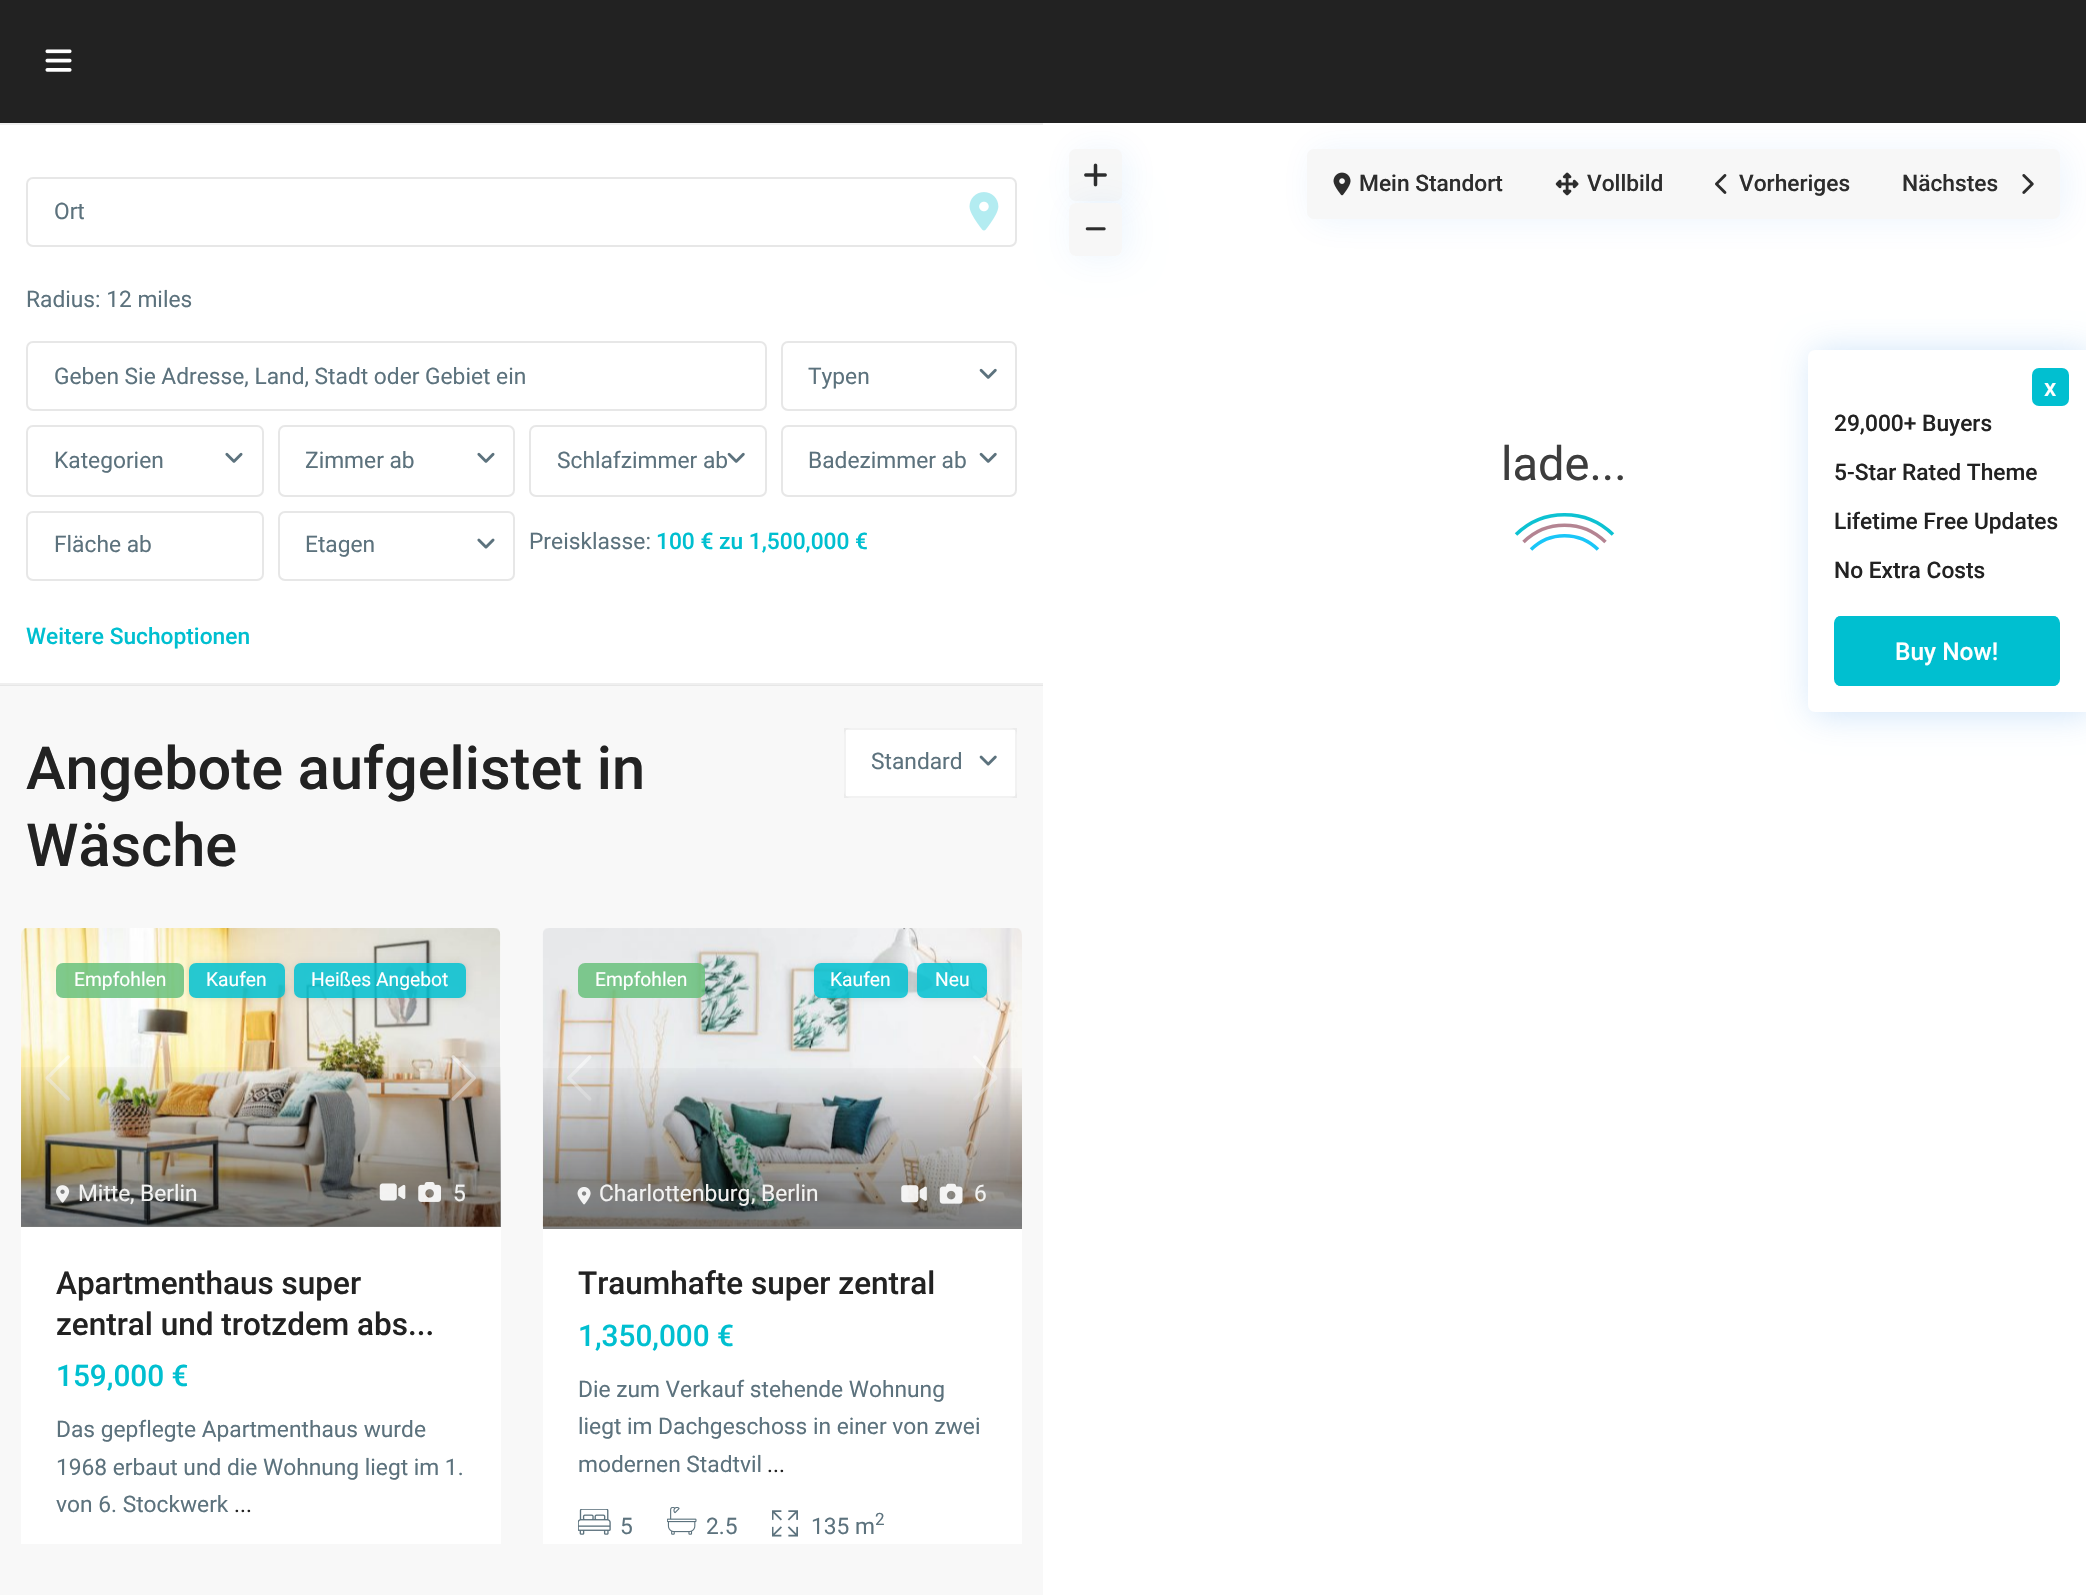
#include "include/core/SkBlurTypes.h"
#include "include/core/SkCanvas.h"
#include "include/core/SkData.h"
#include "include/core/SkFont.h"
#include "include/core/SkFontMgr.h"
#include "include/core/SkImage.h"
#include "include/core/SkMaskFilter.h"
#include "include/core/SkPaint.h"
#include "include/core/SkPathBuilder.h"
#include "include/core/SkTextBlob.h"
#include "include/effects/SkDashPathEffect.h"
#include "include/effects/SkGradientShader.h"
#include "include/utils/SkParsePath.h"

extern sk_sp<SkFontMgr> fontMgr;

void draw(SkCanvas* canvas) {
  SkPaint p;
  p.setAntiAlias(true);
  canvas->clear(SkColorSetRGB(248, 248, 248));
  p.setColor(SK_ColorWHITE);
  canvas->drawRect(SkRect::MakeLTRB(0, 125, 1043, 683), p);
  p.setColor(SkColorSetRGB(239, 239, 239));
  canvas->drawRect(SkRect::MakeLTRB(0, 123, 1043, 125), p);
  p.setColor(SK_ColorWHITE);
  canvas->drawRect(SkRect::MakeLTRB(1043, 123, 2086, 1595), p);
  p.setColor(SkColorSetARGB(20, 13, 117, 227));
  p.setMaskFilter(SkMaskFilter::MakeBlur(kNormal_SkBlurStyle, 17.5f));
  canvas->drawRoundRect(SkRect::MakeLTRB(1075, 151, 1127, 203), 7, 7, p);
  p.setMaskFilter(nullptr);
  p.setMaskFilter(SkMaskFilter::MakeBlur(kNormal_SkBlurStyle, 17.5f));
  canvas->drawRoundRect(SkRect::MakeLTRB(1313, 151, 2065, 221), 7, 7, p);
  p.setMaskFilter(nullptr);
  p.setColor(SkColorSetRGB(34, 34, 34));
  canvas->drawRect(SkRect::MakeLTRB(0, 0, 2086, 123), p);
  canvas->drawImageRect(SkImages::DeferredFromEncodedData(SkData::MakeFromFileName("images/1.png")), SkRect::MakeLTRB(45, 49, 72, 72), SkSamplingOptions());
  p.setColor(SkColorSetRGB(231, 231, 231));
  canvas->drawRect(SkRect::MakeLTRB(0, 685, 1043, 686), p);
  p.setColor(SkColorSetRGB(239, 239, 239));
  canvas->drawRect(SkRect::MakeLTRB(0, 683, 1043, 685), p);
  p.setStyle(SkPaint::kStroke_Style);
  p.setStrokeWidth(2);
  p.setColor(SkColorSetRGB(231, 231, 231));
  canvas->drawRoundRect(SkRect::MakeLTRB(27, 178, 1016, 246), 6, 6, p);
  canvas->drawImageRect(SkImages::DeferredFromEncodedData(SkData::MakeFromFileName("images/2.png")), SkRect::MakeLTRB(969, 192, 999, 231), SkSamplingOptions());
  canvas->drawRoundRect(SkRect::MakeLTRB(27, 342, 766, 410), 6, 6, p);
  canvas->drawRoundRect(SkRect::MakeLTRB(782, 342, 1016, 410), 6, 6, p);
  canvas->drawImageRect(SkImages::DeferredFromEncodedData(SkData::MakeFromFileName("images/3.png")), SkRect::MakeLTRB(979, 368, 997, 379), SkSamplingOptions());
  canvas->drawRoundRect(SkRect::MakeLTRB(27, 426, 263, 496), 6, 6, p);
  canvas->drawImageRect(SkImages::DeferredFromEncodedData(SkData::MakeFromFileName("images/4.png")), SkRect::MakeLTRB(225, 452, 243, 463), SkSamplingOptions());
  canvas->drawRoundRect(SkRect::MakeLTRB(279, 426, 514, 496), 6, 6, p);
  canvas->drawImageRect(SkImages::DeferredFromEncodedData(SkData::MakeFromFileName("images/4.png")), SkRect::MakeLTRB(477, 452, 495, 463), SkSamplingOptions());
  canvas->drawRoundRect(SkRect::MakeLTRB(530, 426, 766, 496), 6, 6, p);
  canvas->drawImageRect(SkImages::DeferredFromEncodedData(SkData::MakeFromFileName("images/3.png")), SkRect::MakeLTRB(727, 452, 745, 463), SkSamplingOptions());
  canvas->drawRoundRect(SkRect::MakeLTRB(782, 426, 1016, 496), 6, 6, p);
  canvas->drawImageRect(SkImages::DeferredFromEncodedData(SkData::MakeFromFileName("images/3.png")), SkRect::MakeLTRB(979, 452, 997, 463), SkSamplingOptions());
  canvas->drawRoundRect(SkRect::MakeLTRB(27, 512, 263, 580), 6, 6, p);
  canvas->drawRoundRect(SkRect::MakeLTRB(279, 512, 514, 580), 6, 6, p);
  canvas->drawImageRect(SkImages::DeferredFromEncodedData(SkData::MakeFromFileName("images/5.png")), SkRect::MakeLTRB(477, 538, 495, 549), SkSamplingOptions());
  p.setStyle(SkPaint::kFill_Style);
  p.setColor(SK_ColorWHITE);
  canvas->drawRoundRect(SkRect::MakeLTRB(844, 728, 1017, 798), 7, 7, p);
  p.setStyle(SkPaint::kStroke_Style);
  p.setColor(SkColorSetARGB(13, 0, 0, 0));
  canvas->drawRect(SkRect::MakeLTRB(845, 729, 1016, 797), p);
  canvas->drawImageRect(SkImages::DeferredFromEncodedData(SkData::MakeFromFileName("images/6.png")), SkRect::MakeLTRB(979, 755, 997, 766), SkSamplingOptions());
  p.setStyle(SkPaint::kFill_Style);
  p.setColor(SK_ColorWHITE);
  canvas->drawPath(SkPathBuilder().moveTo(28, 928).lineTo(494, 928).cubicTo(498, 928, 501, 931, 501, 935).lineTo(501, 1544).lineTo(21, 1544).lineTo(21, 935).cubicTo(21, 931, 24, 928, 28, 928).close().detach(), p);
  canvas->drawImageRect(SkImages::DeferredFromEncodedData(SkData::MakeFromFileName("images/7.png")), SkRect::MakeLTRB(21, 928, 501, 1228), SkSamplingOptions());
  canvas->drawImageRect(SkImages::DeferredFromEncodedData(SkData::MakeFromFileName("images/8.png")), SkRect::MakeLTRB(45, 1055, 70, 1101), SkSamplingOptions());
  canvas->drawImageRect(SkImages::DeferredFromEncodedData(SkData::MakeFromFileName("images/9.png")), SkRect::MakeLTRB(451, 1055, 476, 1101), SkSamplingOptions());
  p.setColor(SkColorSetARGB(217, 105, 193, 125));
  canvas->drawRoundRect(SkRect::MakeLTRB(56, 963, 184, 998), 7, 7, p);
  canvas->save();
  canvas->clipPath(SkPathBuilder(SkPathFillType::kEvenOdd).moveTo(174, 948).lineTo(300, 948).lineTo(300, 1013).lineTo(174, 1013).close().moveTo(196, 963).lineTo(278, 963).cubicTo(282, 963, 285, 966, 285, 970).lineTo(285, 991).cubicTo(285, 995, 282, 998, 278, 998).lineTo(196, 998).cubicTo(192, 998, 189, 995, 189, 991).lineTo(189, 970).cubicTo(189, 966, 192, 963, 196, 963).close().detach(), true);
  p.setColor(SkColorSetARGB(26, 0, 0, 0));
  p.setMaskFilter(SkMaskFilter::MakeBlur(kNormal_SkBlurStyle, 4.5f));
  canvas->drawRoundRect(SkRect::MakeLTRB(189, 963, 285, 998), 7, 7, p);
  p.setMaskFilter(nullptr);
  canvas->restore();
  p.setColor(SkColorSetARGB(217, 0, 191, 208));
  canvas->drawRoundRect(SkRect::MakeLTRB(189, 963, 285, 998), 7, 7, p);
  canvas->save();
  canvas->clipPath(SkPathBuilder(SkPathFillType::kEvenOdd).moveTo(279, 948).lineTo(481, 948).lineTo(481, 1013).lineTo(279, 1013).close().moveTo(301, 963).lineTo(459, 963).cubicTo(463, 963, 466, 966, 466, 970).lineTo(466, 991).cubicTo(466, 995, 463, 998, 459, 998).lineTo(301, 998).cubicTo(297, 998, 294, 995, 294, 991).lineTo(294, 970).cubicTo(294, 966, 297, 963, 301, 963).close().detach(), true);
  p.setColor(SkColorSetARGB(26, 0, 0, 0));
  p.setMaskFilter(SkMaskFilter::MakeBlur(kNormal_SkBlurStyle, 4.5f));
  canvas->drawRoundRect(SkRect::MakeLTRB(294, 963, 466, 998), 7, 7, p);
  p.setMaskFilter(nullptr);
  canvas->restore();
  p.setColor(SkColorSetARGB(217, 0, 191, 208));
  canvas->drawRoundRect(SkRect::MakeLTRB(294, 963, 466, 998), 7, 7, p);
  {
    const SkColor colors[] = {SkColorSetARGB(128, 0, 0, 0), SkColorSetARGB(0, 0, 0, 0)};
    const float stops[] = {0, 0.56f};
    const SkPoint ends[] = {{261, 1227}, {261, 928}};
    p.setShader(SkGradientShader::MakeLinear(ends, colors, stops, 2, SkTileMode::kClamp));
    p.setAlpha(255);
  }
  canvas->drawRect(SkRect::MakeLTRB(21, 1067, 501, 1227), p);
  canvas->drawImageRect(SkImages::DeferredFromEncodedData(SkData::MakeFromFileName("images/10.png")), SkRect::MakeLTRB(56, 1185, 70, 1203), SkSamplingOptions());
  canvas->drawImageRect(SkImages::DeferredFromEncodedData(SkData::MakeFromFileName("images/11.png")), SkRect::MakeLTRB(379, 1183, 406, 1201), SkSamplingOptions());
  canvas->drawImageRect(SkImages::DeferredFromEncodedData(SkData::MakeFromFileName("images/12.png")), SkRect::MakeLTRB(418, 1182, 441, 1202), SkSamplingOptions());
  p.setShader(nullptr);
  p.setColor(SK_ColorWHITE);
  canvas->drawPath(SkPathBuilder().moveTo(550, 928).lineTo(1015, 928).cubicTo(1019, 928, 1022, 931, 1022, 935).lineTo(1022, 1544).lineTo(543, 1544).lineTo(543, 935).cubicTo(543, 931, 546, 928, 550, 928).close().detach(), p);
  canvas->drawImageRect(SkImages::DeferredFromEncodedData(SkData::MakeFromFileName("images/13.png")), SkRect::MakeLTRB(542, 928, 1022, 1227), SkSamplingOptions());
  canvas->drawImageRect(SkImages::DeferredFromEncodedData(SkData::MakeFromFileName("images/14.png")), SkRect::MakeLTRB(567, 1055, 592, 1101), SkSamplingOptions());
  canvas->drawImageRect(SkImages::DeferredFromEncodedData(SkData::MakeFromFileName("images/15.png")), SkRect::MakeLTRB(973, 1055, 998, 1101), SkSamplingOptions());
  p.setColor(SkColorSetARGB(217, 105, 193, 125));
  canvas->drawRoundRect(SkRect::MakeLTRB(578, 963, 705, 998), 7, 7, p);
  canvas->save();
  canvas->clipPath(SkPathBuilder(SkPathFillType::kEvenOdd).moveTo(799, 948).lineTo(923, 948).lineTo(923, 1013).lineTo(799, 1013).close().moveTo(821, 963).lineTo(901, 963).cubicTo(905, 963, 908, 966, 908, 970).lineTo(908, 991).cubicTo(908, 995, 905, 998, 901, 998).lineTo(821, 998).cubicTo(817, 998, 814, 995, 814, 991).lineTo(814, 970).cubicTo(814, 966, 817, 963, 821, 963).close().detach(), true);
  p.setColor(SkColorSetARGB(26, 0, 0, 0));
  p.setMaskFilter(SkMaskFilter::MakeBlur(kNormal_SkBlurStyle, 4.5f));
  canvas->drawRoundRect(SkRect::MakeLTRB(814, 963, 908, 998), 7, 7, p);
  p.setMaskFilter(nullptr);
  canvas->restore();
  p.setColor(SkColorSetARGB(217, 0, 191, 208));
  canvas->drawRoundRect(SkRect::MakeLTRB(814, 963, 908, 998), 7, 7, p);
  canvas->save();
  canvas->clipPath(SkPathBuilder(SkPathFillType::kEvenOdd).moveTo(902, 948).lineTo(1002, 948).lineTo(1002, 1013).lineTo(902, 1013).close().moveTo(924, 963).lineTo(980, 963).cubicTo(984, 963, 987, 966, 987, 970).lineTo(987, 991).cubicTo(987, 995, 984, 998, 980, 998).lineTo(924, 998).cubicTo(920, 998, 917, 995, 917, 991).lineTo(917, 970).cubicTo(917, 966, 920, 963, 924, 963).close().detach(), true);
  p.setColor(SkColorSetARGB(26, 0, 0, 0));
  p.setMaskFilter(SkMaskFilter::MakeBlur(kNormal_SkBlurStyle, 4.5f));
  canvas->drawRoundRect(SkRect::MakeLTRB(917, 963, 987, 998), 7, 7, p);
  p.setMaskFilter(nullptr);
  canvas->restore();
  p.setColor(SkColorSetARGB(217, 0, 191, 208));
  canvas->drawRoundRect(SkRect::MakeLTRB(917, 963, 987, 998), 7, 7, p);
  {
    const SkColor colors[] = {SkColorSetARGB(128, 0, 0, 0), SkColorSetARGB(0, 0, 0, 0)};
    const float stops[] = {0, 0.56f};
    const SkPoint ends[] = {{782, 1229}, {782, 928}};
    p.setShader(SkGradientShader::MakeLinear(ends, colors, stops, 2, SkTileMode::kClamp));
    p.setAlpha(255);
  }
  canvas->drawRect(SkRect::MakeLTRB(543, 1068, 1022, 1229), p);
  canvas->drawImageRect(SkImages::DeferredFromEncodedData(SkData::MakeFromFileName("images/16.png")), SkRect::MakeLTRB(577, 1187, 591, 1205), SkSamplingOptions());
  canvas->drawImageRect(SkImages::DeferredFromEncodedData(SkData::MakeFromFileName("images/17.png")), SkRect::MakeLTRB(901, 1185, 927, 1203), SkSamplingOptions());
  canvas->drawImageRect(SkImages::DeferredFromEncodedData(SkData::MakeFromFileName("images/18.png")), SkRect::MakeLTRB(939, 1183, 963, 1204), SkSamplingOptions());
  canvas->drawImageRect(SkImages::DeferredFromEncodedData(SkData::MakeFromFileName("images/19.png")), SkRect::MakeLTRB(578, 1509, 611, 1535), SkSamplingOptions());
  canvas->drawImageRect(SkImages::DeferredFromEncodedData(SkData::MakeFromFileName("images/20.png")), SkRect::MakeLTRB(667, 1507, 697, 1535), SkSamplingOptions());
  canvas->drawImageRect(SkImages::DeferredFromEncodedData(SkData::MakeFromFileName("images/21.png")), SkRect::MakeLTRB(772, 1510, 798, 1537), SkSamplingOptions());
  p.setShader(nullptr);
  p.setColor(SkColorSetRGB(247, 247, 247));
  canvas->drawRoundRect(SkRect::MakeLTRB(1069, 149, 1122, 201), 7, 7, p);
  canvas->drawImageRect(SkImages::DeferredFromEncodedData(SkData::MakeFromFileName("images/22.png")), SkRect::MakeLTRB(1084, 163, 1107, 187), SkSamplingOptions());
  canvas->save();
  canvas->clipPath(SkPathBuilder(SkPathFillType::kEvenOdd).moveTo(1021, 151).lineTo(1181, 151).lineTo(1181, 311).lineTo(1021, 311).close().moveTo(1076, 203).lineTo(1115, 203).cubicTo(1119, 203, 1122, 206, 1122, 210).lineTo(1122, 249).cubicTo(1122, 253, 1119, 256, 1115, 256).lineTo(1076, 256).cubicTo(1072, 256, 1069, 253, 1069, 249).lineTo(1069, 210).cubicTo(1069, 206, 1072, 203, 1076, 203).close().detach(), true);
  p.setColor(SkColorSetARGB(20, 0, 110, 225));
  p.setMaskFilter(SkMaskFilter::MakeBlur(kNormal_SkBlurStyle, 17.5f));
  canvas->drawRoundRect(SkRect::MakeLTRB(1075, 205, 1127, 257), 7, 7, p);
  p.setMaskFilter(nullptr);
  canvas->restore();
  p.setColor(SkColorSetARGB(242, 247, 247, 247));
  canvas->drawRoundRect(SkRect::MakeLTRB(1069, 203, 1122, 256), 7, 7, p);
  canvas->drawImageRect(SkImages::DeferredFromEncodedData(SkData::MakeFromFileName("images/23.png")), SkRect::MakeLTRB(1085, 227, 1106, 231), SkSamplingOptions());
  p.setColor(SkColorSetRGB(247, 247, 247));
  canvas->drawRoundRect(SkRect::MakeLTRB(1307, 149, 2060, 219), 7, 7, p);
  canvas->drawImageRect(SkImages::DeferredFromEncodedData(SkData::MakeFromFileName("images/24.png")), SkRect::MakeLTRB(1333, 172, 1351, 196), SkSamplingOptions());
  canvas->drawImageRect(SkImages::DeferredFromEncodedData(SkData::MakeFromFileName("images/25.png")), SkRect::MakeLTRB(1555, 172, 1579, 196), SkSamplingOptions());
  canvas->drawImageRect(SkImages::DeferredFromEncodedData(SkData::MakeFromFileName("images/26.png")), SkRect::MakeLTRB(1715, 174, 1727, 194), SkSamplingOptions());
  canvas->drawImageRect(SkImages::DeferredFromEncodedData(SkData::MakeFromFileName("images/27.png")), SkRect::MakeLTRB(2022, 174, 2034, 194), SkSamplingOptions());
  p.setStyle(SkPaint::kStroke_Style);
  p.setStrokeWidth(3.5f);
  p.setColor(SkColorSetRGB(13, 194, 210));
  canvas->drawPath(SkPathBuilder().moveTo(1516, 534.5f).cubicTo(1542.5f, 508, 1586.5f, 508, 1613, 534.5f).detach(), p);
  p.setColor(SkColorSetRGB(180, 132, 146));
  canvas->drawPath(SkPathBuilder().moveTo(1523.5f, 542).cubicTo(1546, 519.5f, 1583, 519.5f, 1605.5f, 542).detach(), p);
  p.setColor(SkColorSetRGB(25, 198, 248));
  canvas->drawPath(SkPathBuilder().moveTo(1531, 549.5f).cubicTo(1549.5f, 531, 1579.5f, 531, 1598, 549.5f).detach(), p);
  p.setStyle(SkPaint::kFill_Style);
  p.setColor(SkColorSetARGB(51, 0, 110, 225));
  p.setMaskFilter(SkMaskFilter::MakeBlur(kNormal_SkBlurStyle, 17.5f));
  canvas->drawRoundRect(SkRect::MakeLTRB(1813, 352, 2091, 714), 7, 7, p);
  p.setMaskFilter(nullptr);
  p.setColor(SK_ColorWHITE);
  canvas->drawPath(SkPathBuilder().moveTo(1815, 350).lineTo(2086, 350).lineTo(2086, 712).lineTo(1815, 712).cubicTo(1811, 712, 1808, 709, 1808, 705).lineTo(1808, 357).cubicTo(1808, 353, 1811, 350, 1815, 350).close().detach(), p);
  p.setColor(SkColorSetRGB(1, 191, 208));
  canvas->drawRoundRect(SkRect::MakeLTRB(2032, 368, 2069, 406), 7, 7, p);
  canvas->save();
  canvas->clipPath(SkPathBuilder().moveTo(1841, 616).lineTo(2053, 616).cubicTo(2057, 616, 2060, 619, 2060, 623).lineTo(2060, 679).cubicTo(2060, 683, 2057, 686, 2053, 686).lineTo(1841, 686).cubicTo(1837, 686, 1834, 683, 1834, 679).lineTo(1834, 623).cubicTo(1834, 619, 1837, 616, 1841, 616).close().detach(), true);
  p.setColor(SkColorSetRGB(0, 191, 208));
  canvas->drawRect(SkRect::MakeLTRB(1836, 616, 2058, 686), p);
  canvas->restore();
  p.setStyle(SkPaint::kStroke_Style);
  p.setStrokeWidth(2);
  canvas->drawRoundRect(SkRect::MakeLTRB(1835, 617, 2059, 685), 6, 6, p);
  SkFont font1(fontMgr->matchFamilyStyle("Roboto", SkFontStyle::Normal()), 22.75f);
  font1.setSubpixel(true);
  p.setStyle(SkPaint::kFill_Style);
  p.setColor(SkColorSetRGB(92, 114, 125));
  canvas->drawString("Ort", 54, 219, font1, p);
  canvas->drawString("Radius: 12 miles", 26, 307, font1, p);
  canvas->drawString("Geben Sie Adresse, Land, Stadt oder Gebiet ein", 54, 384, font1, p);
  canvas->drawString("Typen", 808, 384, font1, p);
  canvas->drawString("Kategorien", 54, 468, font1, p);
  canvas->drawString("Zimmer ab", 305, 468, font1, p);
  canvas->drawString("Schlafzimmer ab", 557, 468, font1, p);
  canvas->drawString("Badezimmer ab", 808, 468, font1, p);
  canvas->drawString("Fläche ab", 54, 552, font1, p);
  canvas->drawString("Etagen", 305, 552, font1, p);
  canvas->drawString("Preisklasse:", 529, 549, font1, p);
  SkFont font2(fontMgr->matchFamilyStyle("Roboto", SkFontStyle(500, SkFontStyle::kNormal_Width, SkFontStyle::kUpright_Slant)), 22.75f);
  font2.setSubpixel(true);
  p.setColor(SkColorSetRGB(0, 191, 208));
  canvas->drawString("100 € zu 1,500,000 €", 656, 549, font2, p);
  canvas->drawString("Weitere Suchoptionen", 26, 644, font2, p);
  p.setColor(SkColorSetRGB(92, 114, 125));
  canvas->drawString("Standard", 871, 769, font1, p);
  SkFont font3(fontMgr->matchFamilyStyle("Roboto", SkFontStyle(500, SkFontStyle::kNormal_Width, SkFontStyle::kUpright_Slant)), 59.5f);
  font3.setSubpixel(true);
  p.setColor(SkColorSetRGB(34, 34, 34));
  canvas->drawString("Angebote aufgelistet in", 26, 789, font3, p);
  canvas->drawString("Wäsche", 26, 866, font3, p);
  SkFont font4(fontMgr->matchFamilyStyle("Roboto", SkFontStyle::Normal()), 19.25f);
  font4.setSubpixel(true);
  p.setColor(SK_ColorWHITE);
  canvas->drawString("Empfohlen", 74, 986, font4, p);
  canvas->drawString("Kaufen", 206, 986, font4, p);
  canvas->drawString("Heißes Angebot", 311, 986, font4, p);
  p.setColor(SkColorSetRGB(242, 242, 241));
  canvas->drawString("Mitte", 78, 1201, font1, p);
  canvas->drawString(",", 130, 1201, font1, p);
  canvas->drawString("Berlin", 140, 1201, font1, p);
  canvas->drawString("5", 453, 1201, font1, p);
  SkFont font5(fontMgr->matchFamilyStyle("Roboto", SkFontStyle(500, SkFontStyle::kNormal_Width, SkFontStyle::kUpright_Slant)), 31.5f);
  font5.setSubpixel(true);
  p.setColor(SkColorSetRGB(34, 34, 34));
  canvas->drawString("Apartmenthaus super", 56, 1294, font5, p);
  canvas->drawString("zentral und trotzdem abs...", 56, 1335, font5, p);
  SkFont font6(fontMgr->matchFamilyStyle("Roboto", SkFontStyle(500, SkFontStyle::kNormal_Width, SkFontStyle::kUpright_Slant)), 29.75f);
  font6.setSubpixel(true);
  p.setColor(SkColorSetRGB(0, 191, 208));
  canvas->drawString("159,000 €", 56, 1386, font6, p);
  p.setColor(SkColorSetRGB(92, 114, 125));
  canvas->drawString("Das gepflegte Apartmenthaus wurde", 56, 1437, font1, p);
  canvas->drawString("1968 erbaut und die Wohnung liegt im 1.", 56, 1475, font1, p);
  canvas->drawString("von 6. Stockwerk", 56, 1512, font1, p);
  p.setColor(SkColorSetRGB(34, 34, 34));
  canvas->drawString("...", 234, 1512, font1, p);
  p.setColor(SK_ColorWHITE);
  canvas->drawString("Empfohlen", 595, 986, font4, p);
  canvas->drawString("Kaufen", 830, 986, font4, p);
  canvas->drawString("Neu", 935, 986, font4, p);
  p.setColor(SkColorSetRGB(242, 242, 241));
  canvas->drawString("Charlottenburg", 599, 1201, font1, p);
  p.setColor(SkColorSetRGB(236, 239, 238));
  canvas->drawString(",", 751, 1201, font1, p);
  p.setColor(SkColorSetRGB(242, 242, 241));
  canvas->drawString("Berlin", 761, 1201, font1, p);
  canvas->drawString("6", 974, 1201, font1, p);
  p.setColor(SkColorSetRGB(34, 34, 34));
  canvas->drawString("Traumhafte super zentral", 578, 1294, font5, p);
  p.setColor(SkColorSetRGB(0, 191, 208));
  canvas->drawString("1,350,000 €", 578, 1346, font6, p);
  p.setColor(SkColorSetRGB(92, 114, 125));
  canvas->drawString("Die zum Verkauf stehende Wohnung", 578, 1397, font1, p);
  canvas->drawString("liegt im Dachgeschoss in einer von zwei", 578, 1434, font1, p);
  canvas->drawString("modernen Stadtvil", 578, 1472, font1, p);
  p.setColor(SkColorSetRGB(34, 34, 34));
  canvas->drawString("...", 767, 1472, font1, p);
  p.setColor(SkColorSetRGB(92, 114, 125));
  canvas->drawString("5", 620, 1534, font1, p);
  canvas->drawString("2.5", 706, 1534, font1, p);
  canvas->drawString("135 m", 811, 1534, font1, p);
  SkFont font7(fontMgr->matchFamilyStyle("Roboto", SkFontStyle::Normal()), 17);
  font7.setSubpixel(true);
  canvas->drawString("2", 875, 1525, font7, p);
  p.setColor(SkColorSetRGB(45, 45, 45));
  canvas->drawString("Mein Standort", 1359, 191, font2, p);
  canvas->drawString("Vollbild", 1587, 191, font2, p);
  canvas->drawString("Vorheriges", 1739, 191, font2, p);
  canvas->drawString("Nächstes", 1902, 191, font2, p);
  SkFont font8(fontMgr->matchFamilyStyle("Roboto", SkFontStyle::Normal()), 47);
  font8.setSubpixel(true);
  p.setColor(SkColorSetRGB(61, 61, 61));
  canvas->drawString("lade...", 1501, 480, font8, p);
  SkFont font9(fontMgr->matchFamilyStyle("Roboto", SkFontStyle(500, SkFontStyle::kNormal_Width, SkFontStyle::kUpright_Slant)), 24.5f);
  font9.setSubpixel(true);
  p.setColor(SK_ColorWHITE);
  canvas->drawString("x", 2044, 396, font9, p);
  p.setColor(SkColorSetRGB(34, 34, 34));
  canvas->drawString("29,000+ Buyers", 1834, 431, font2, p);
  canvas->drawString("5-Star Rated Theme", 1834, 480, font2, p);
  canvas->drawString("Lifetime Free Updates", 1834, 529, font2, p);
  canvas->drawString("No Extra Costs", 1834, 578, font2, p);
  p.setColor(SK_ColorWHITE);
  canvas->drawString("Buy Now!", 1895, 660, font9, p);
}
